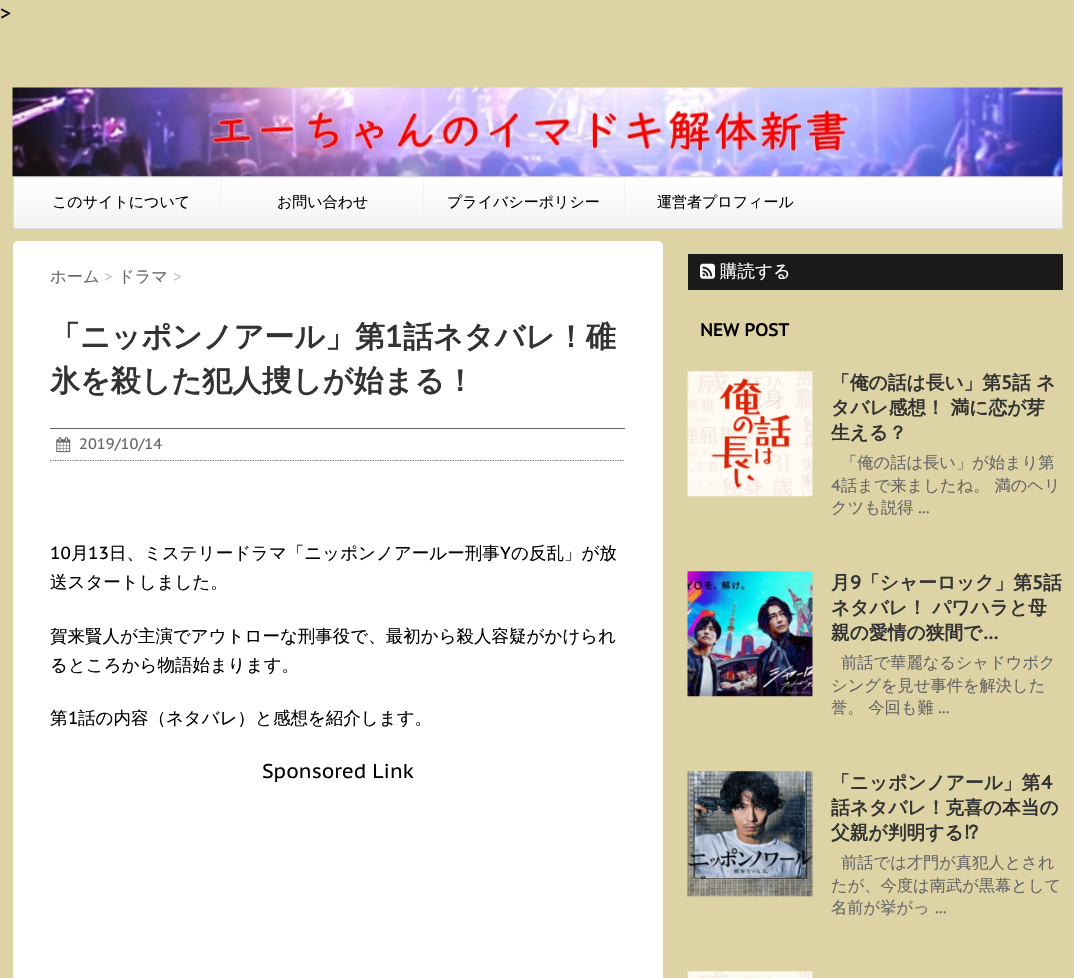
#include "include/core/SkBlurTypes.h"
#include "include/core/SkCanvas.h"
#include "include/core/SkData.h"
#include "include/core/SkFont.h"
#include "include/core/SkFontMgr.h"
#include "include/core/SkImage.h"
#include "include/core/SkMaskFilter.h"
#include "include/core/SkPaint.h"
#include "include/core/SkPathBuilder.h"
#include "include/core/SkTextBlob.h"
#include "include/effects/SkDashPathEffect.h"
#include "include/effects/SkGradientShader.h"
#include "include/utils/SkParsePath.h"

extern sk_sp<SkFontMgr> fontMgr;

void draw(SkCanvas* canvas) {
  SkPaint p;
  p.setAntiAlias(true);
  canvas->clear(SkColorSetRGB(221, 211, 164));
  {
    const SkColor colors[] = {SK_ColorWHITE, SkColorSetRGB(243, 243, 243)};
    const float stops[] = {0, 1};
    const SkPoint ends[] = {{538, 127}, {538, 178}};
    p.setShader(SkGradientShader::MakeLinear(ends, colors, stops, 2, SkTileMode::kClamp));
    p.setAlpha(255);
  }
  canvas->drawPath(SkPathBuilder().moveTo(14, 176).lineTo(1062, 176).cubicTo(1062.5f, 176, 1063, 176.5f, 1063, 177).lineTo(1063, 178).lineTo(13, 178).lineTo(13, 177).cubicTo(13, 176.5f, 13.5f, 176, 14, 176).close().detach(), p);
  {
    const SkColor colors[] = {SK_ColorWHITE, SkColorSetRGB(243, 243, 243)};
    const float stops[] = {0, 1};
    const SkPoint ends[] = {{538, 177}, {538, 228}};
    p.setShader(SkGradientShader::MakeLinear(ends, colors, stops, 2, SkTileMode::kClamp));
    p.setAlpha(255);
  }
  canvas->drawRect(SkRect::MakeLTRB(14, 178, 1062, 228), p);
  p.setStyle(SkPaint::kStroke_Style);
  p.setStrokeWidth(1);
  p.setShader(nullptr);
  p.setColor(SkColorSetRGB(224, 222, 222));
  canvas->drawRoundRect(SkRect::MakeLTRB(13.5f, 176.5f, 1062.5f, 228.5f), 0.5f, 0.5f, p);
  canvas->drawImageRect(SkImages::DeferredFromEncodedData(SkData::MakeFromFileName("images/1.png")), SkRect::MakeLTRB(12, 87, 1063, 177), SkSamplingOptions());
  p.setStyle(SkPaint::kFill_Style);
  p.setColor(SkColorSetRGB(243, 243, 243));
  canvas->drawRect(SkRect::MakeLTRB(221, 178, 222, 217), p);
  canvas->drawRect(SkRect::MakeLTRB(423, 178, 424, 217), p);
  canvas->drawRect(SkRect::MakeLTRB(624, 178, 625, 217), p);
  p.setColor(SK_ColorWHITE);
  canvas->drawRoundRect(SkRect::MakeLTRB(13, 241, 663, 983), 5, 5, p);
  p.setColor(SkColorSetRGB(102, 102, 102));
  canvas->drawRect(SkRect::MakeLTRB(50, 428, 625, 429), p);
  p.setStyle(SkPaint::kStroke_Style);
  p.setStrokeWidth(1.2f);
  p.setPathEffect(SkDashPathEffect::Make({{1.25f, 1.25f}}, 0));
  canvas->drawPath(SkPathBuilder().moveTo(50, 460.5f).lineTo(625, 460.5f).detach(), p);
  p.setPathEffect(nullptr);
  canvas->drawImageRect(SkImages::DeferredFromEncodedData(SkData::MakeFromFileName("images/2.png")), SkRect::MakeLTRB(56, 437, 71, 453), SkSamplingOptions());
  p.setStyle(SkPaint::kFill_Style);
  p.setColor(SkColorSetRGB(26, 26, 26));
  canvas->drawRect(SkRect::MakeLTRB(688, 254, 1063, 290), p);
  canvas->drawImageRect(SkImages::DeferredFromEncodedData(SkData::MakeFromFileName("images/3.png")), SkRect::MakeLTRB(700, 263, 715, 279), SkSamplingOptions());
  p.setStyle(SkPaint::kStroke_Style);
  p.setColor(SkColorSetRGB(204, 204, 204));
  p.setPathEffect(SkDashPathEffect::Make({{1.25f, 1.25f}}, 0));
  canvas->drawPath(SkPathBuilder().moveTo(687.5f, 545.5f).lineTo(1062.5f, 545.5f).detach(), p);
  p.setPathEffect(nullptr);
  canvas->drawImageRect(SkImages::DeferredFromEncodedData(SkData::MakeFromFileName("images/4.png")), SkRect::MakeLTRB(687, 371, 813, 497), SkSamplingOptions());
  p.setPathEffect(SkDashPathEffect::Make({{1.25f, 1.25f}}, 0));
  canvas->drawPath(SkPathBuilder().moveTo(687.5f, 745.5f).lineTo(1062.5f, 745.5f).detach(), p);
  p.setPathEffect(nullptr);
  canvas->drawImageRect(SkImages::DeferredFromEncodedData(SkData::MakeFromFileName("images/5.png")), SkRect::MakeLTRB(687, 571, 813, 697), SkSamplingOptions());
  p.setPathEffect(SkDashPathEffect::Make({{1.25f, 1.25f}}, 0));
  canvas->drawPath(SkPathBuilder().moveTo(687.5f, 945.5f).lineTo(1062.5f, 945.5f).detach(), p);
  p.setPathEffect(nullptr);
  canvas->drawImageRect(SkImages::DeferredFromEncodedData(SkData::MakeFromFileName("images/6.png")), SkRect::MakeLTRB(687, 771, 813, 897), SkSamplingOptions());
  canvas->drawImageRect(SkImages::DeferredFromEncodedData(SkData::MakeFromFileName("images/7.png")), SkRect::MakeLTRB(687, 971, 813, 978), SkSamplingOptions());
  SkFont font1(fontMgr->matchFamilyStyle("PT Sans Caption", SkFontStyle::Normal()), 20);
  font1.setSubpixel(true);
  p.setStyle(SkPaint::kFill_Style);
  p.setColor(SK_ColorBLACK);
  canvas->drawString(">", 0, 20, font1, p);
  SkFont font2(fontMgr->matchFamilyStyle("WenQuanYi Zen Hei", SkFontStyle(500, SkFontStyle::kNormal_Width, SkFontStyle::kUpright_Slant)), 15);
  font2.setSubpixel(true);
  canvas->drawString("このサイトについて", 52, 207, font2, p);
  canvas->drawString("お問い合わせ", 277, 207, font2, p);
  canvas->drawString("プライバシーポリシー", 447, 207, font2, p);
  canvas->drawString("運営者プロフィール", 657, 207, font2, p);
  SkFont font3(fontMgr->matchFamilyStyle("WenQuanYi Zen Hei", SkFontStyle(500, SkFontStyle::kNormal_Width, SkFontStyle::kUpright_Slant)), 16.25f);
  font3.setSubpixel(true);
  p.setColor(SkColorSetRGB(102, 102, 102));
  canvas->drawString("ホーム", 50, 282, font3, p);
  SkFont font4(fontMgr->matchFamilyStyle("PT Sans Caption", SkFontStyle::Normal()), 16.25f);
  font4.setSubpixel(true);
  p.setColor(SkColorSetRGB(204, 204, 204));
  canvas->drawString(">", 104, 282, font4, p);
  p.setColor(SkColorSetRGB(102, 102, 102));
  canvas->drawString("ドラマ", 118, 282, font3, p);
  p.setColor(SkColorSetRGB(204, 204, 204));
  canvas->drawString(">", 173, 282, font4, p);
  SkFont font5(fontMgr->matchFamilyStyle("WenQuanYi Zen Hei", SkFontStyle::Bold()), 30);
  font5.setSubpixel(true);
  p.setColor(SkColorSetRGB(51, 51, 51));
  canvas->drawString("「ニッポンノアール」第", 50, 347, font5, p);
  SkFont font6(fontMgr->matchFamilyStyle("PT Sans Caption", SkFontStyle::Bold()), 30);
  font6.setSubpixel(true);
  canvas->drawString("1", 385, 347, font6, p);
  canvas->drawString("話ネタバレ！碓", 403, 347, font5, p);
  canvas->drawString("氷を殺した犯人捜しが始まる！", 50, 391, font5, p);
  SkFont font7(fontMgr->matchFamilyStyle("PT Sans Caption", SkFontStyle::Normal()), 15);
  font7.setSubpixel(true);
  p.setColor(SkColorSetRGB(102, 102, 102));
  canvas->drawString("2019/10/14", 79, 449, font7, p);
  SkFont font8(fontMgr->matchFamilyStyle("PT Sans Caption", SkFontStyle::Normal()), 17.5f);
  font8.setSubpixel(true);
  p.setColor(SK_ColorBLACK);
  canvas->drawString("10", 50, 559, font8, p);
  SkFont font9(fontMgr->matchFamilyStyle("WenQuanYi Zen Hei", SkFontStyle(500, SkFontStyle::kNormal_Width, SkFontStyle::kUpright_Slant)), 17.5f);
  font9.setSubpixel(true);
  canvas->drawString("月", 71, 559, font9, p);
  canvas->drawString("13", 88, 559, font8, p);
  canvas->drawString("日、ミステリードラマ「ニッポンノアールー刑事", 109, 559, font9, p);
  canvas->drawString("Y", 500, 559, font8, p);
  canvas->drawString("の反乱」が放", 511, 559, font9, p);
  canvas->drawString("送スタートしました。", 50, 588, font9, p);
  canvas->drawString("賀来賢人が主演でアウトローな刑事役で、最初から殺人容疑がかけられ", 50, 642, font9, p);
  canvas->drawString("るところから物語始まります。", 50, 671, font9, p);
  canvas->drawString("第", 50, 724, font9, p);
  canvas->drawString("1", 68, 724, font8, p);
  canvas->drawString("話の内容（ネタバレ）と感想を紹介します。", 78, 724, font9, p);
  canvas->drawString("Sponsored Link", 262, 778, font1, p);
  p.setColor(SK_ColorWHITE);
  canvas->drawString("購読する", 720, 277, font9, p);
  SkFont font10(fontMgr->matchFamilyStyle("PT Sans Caption", SkFontStyle::Bold()), 17.5f);
  font10.setSubpixel(true);
  p.setColor(SK_ColorBLACK);
  canvas->drawString("NEW POST", 700, 336, font10, p);
  SkFont font11(fontMgr->matchFamilyStyle("WenQuanYi Zen Hei", SkFontStyle::Bold()), 18.75f);
  font11.setSubpixel(true);
  p.setColor(SkColorSetRGB(51, 51, 51));
  canvas->drawString("「俺の話は長い」第", 831, 389, font11, p);
  SkFont font12(fontMgr->matchFamilyStyle("PT Sans Caption", SkFontStyle::Bold()), 18.75f);
  font12.setSubpixel(true);
  canvas->drawString("5", 1001, 389, font12, p);
  canvas->drawString("話 ネ", 1012, 389, font11, p);
  canvas->drawString("タバレ感想！ 満に恋が芽", 831, 414, font11, p);
  canvas->drawString("生える？", 831, 439, font11, p);
  p.setColor(SkColorSetRGB(102, 102, 102));
  canvas->drawString("「俺の話は長い」が始まり第", 841, 468, font3, p);
  canvas->drawString("4", 831, 491, font4, p);
  canvas->drawString("話まで来ましたね。 満のヘリ", 841, 491, font3, p);
  canvas->drawString("クツも説得", 831, 513, font3, p);
  canvas->drawString("...", 918, 513, font4, p);
  p.setColor(SkColorSetRGB(51, 51, 51));
  canvas->drawString("月", 831, 589, font11, p);
  canvas->drawString("9", 850, 589, font12, p);
  canvas->drawString("「シャーロック」第", 861, 589, font11, p);
  canvas->drawString("5", 1032, 589, font12, p);
  canvas->drawString("話", 1043, 589, font11, p);
  canvas->drawString("ネタバレ！ パワハラと母", 831, 614, font11, p);
  canvas->drawString("親の愛情の狭間で", 831, 639, font11, p);
  canvas->drawString("…", 983, 639, font12, p);
  p.setColor(SkColorSetRGB(102, 102, 102));
  canvas->drawString("前話で華麗なるシャドウボク", 841, 668, font3, p);
  canvas->drawString("シングを見せ事件を解決した", 831, 691, font3, p);
  canvas->drawString("誉。 今回も難", 831, 713, font3, p);
  canvas->drawString("...", 938, 713, font4, p);
  p.setColor(SkColorSetRGB(51, 51, 51));
  canvas->drawString("「ニッポンノアール」第", 831, 789, font11, p);
  canvas->drawString("4", 1041, 789, font12, p);
  canvas->drawString("話ネタバレ！克喜の本当の", 831, 814, font11, p);
  canvas->drawString("父親が判明する", 831, 839, font11, p);
  SkFont font13(fontMgr->matchFamilyStyle("IPAPGothic", SkFontStyle::Bold()), 18.75f);
  font13.setSubpixel(true);
  canvas->drawString("⁉", 964, 839, font13, p);
  p.setColor(SkColorSetRGB(102, 102, 102));
  canvas->drawString("前話では才門が真犯人とされ", 841, 868, font3, p);
  canvas->drawString("たが、今度は南武が黒幕として", 831, 891, font3, p);
  canvas->drawString("名前が挙がっ", 831, 913, font3, p);
  canvas->drawString("...", 935, 913, font4, p);
}
